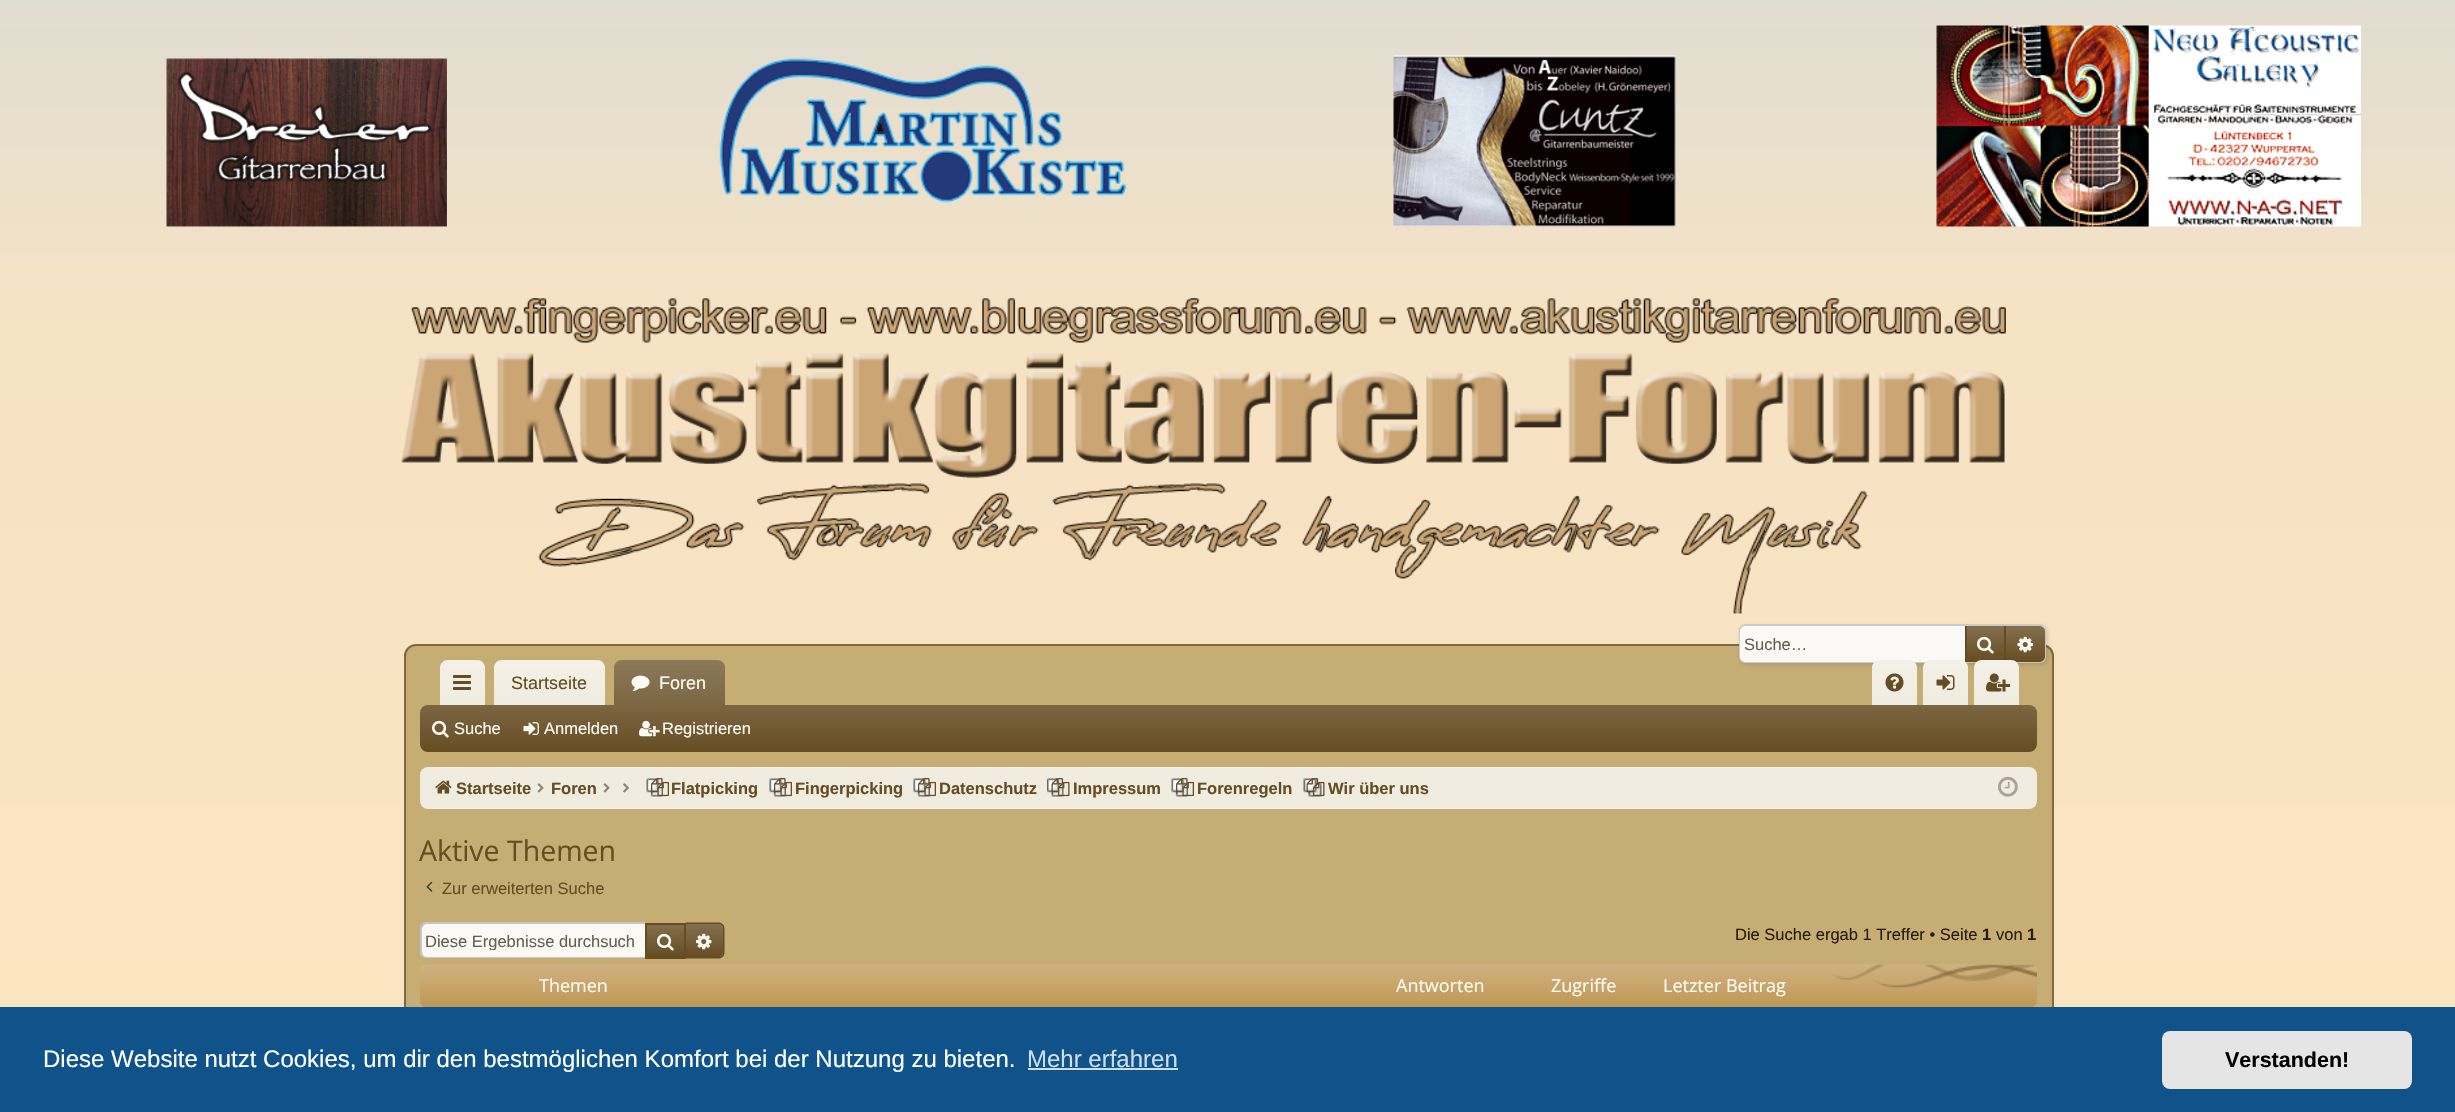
#include "include/core/SkBlurTypes.h"
#include "include/core/SkCanvas.h"
#include "include/core/SkData.h"
#include "include/core/SkFont.h"
#include "include/core/SkFontMgr.h"
#include "include/core/SkImage.h"
#include "include/core/SkMaskFilter.h"
#include "include/core/SkPaint.h"
#include "include/core/SkPathBuilder.h"
#include "include/core/SkTextBlob.h"
#include "include/effects/SkDashPathEffect.h"
#include "include/effects/SkGradientShader.h"
#include "include/utils/SkParsePath.h"

extern sk_sp<SkFontMgr> fontMgr;

void draw(SkCanvas* canvas) {
  SkPaint p;
  p.setAntiAlias(true);
  canvas->clear(SK_ColorWHITE);
  {
    const SkColor colors[] = {SkColorSetRGB(226, 221, 209), SkColorSetRGB(246, 227, 196), SkColorSetRGB(254, 230, 190)};
    const float stops[] = {0, 0.27f, 1};
    const SkPoint ends[] = {{1228, 0}, {1228, 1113}};
    p.setShader(SkGradientShader::MakeLinear(ends, colors, stops, 3, SkTileMode::kClamp));
    p.setAlpha(255);
  }
  canvas->drawRect(SkRect::MakeLTRB(0, 0, 2455, 26), p);
  {
    const SkColor colors[] = {SkColorSetRGB(226, 221, 209), SkColorSetRGB(246, 227, 196), SkColorSetRGB(254, 229, 190)};
    const float stops[] = {0, 0.21f, 1};
    const SkPoint ends[] = {{1228, 25}, {1228, 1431}};
    p.setShader(SkGradientShader::MakeLinear(ends, colors, stops, 3, SkTileMode::kClamp));
    p.setAlpha(255);
  }
  canvas->drawRect(SkRect::MakeLTRB(0, 26, 2455, 1007), p);
  canvas->drawImageRect(SkImages::DeferredFromEncodedData(SkData::MakeFromFileName("images/1.png")), SkRect::MakeLTRB(166, 58, 447, 227), SkSamplingOptions());
  canvas->drawImageRect(SkImages::DeferredFromEncodedData(SkData::MakeFromFileName("images/2.png")), SkRect::MakeLTRB(719, 58, 1127, 203), SkSamplingOptions());
  canvas->drawImageRect(SkImages::DeferredFromEncodedData(SkData::MakeFromFileName("images/3.png")), SkRect::MakeLTRB(1393, 55, 1676, 227), SkSamplingOptions());
  canvas->drawImageRect(SkImages::DeferredFromEncodedData(SkData::MakeFromFileName("images/4.png")), SkRect::MakeLTRB(1936, 25, 2361, 227), SkSamplingOptions());
  canvas->drawImageRect(SkImages::DeferredFromEncodedData(SkData::MakeFromFileName("images/5.png")), SkRect::MakeLTRB(401, 298, 2006, 614), SkSamplingOptions());
  p.setShader(nullptr);
  p.setColor(SkColorSetRGB(198, 173, 116));
  canvas->drawRoundRect(SkRect::MakeLTRB(405, 645, 2053, 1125), 11, 11, p);
  p.setStyle(SkPaint::kStroke_Style);
  p.setStrokeWidth(2);
  p.setColor(SkColorSetRGB(125, 105, 63));
  canvas->drawRoundRect(SkRect::MakeLTRB(405, 645, 2053, 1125), 11, 11, p);
  p.setStyle(SkPaint::kFill_Style);
  p.setColor(SkColorSetARGB(26, 0, 0, 0));
  p.setMaskFilter(SkMaskFilter::MakeBlur(kNormal_SkBlurStyle, 2));
  canvas->drawRoundRect(SkRect::MakeLTRB(1740, 626, 2048, 665), 6, 6, p);
  p.setMaskFilter(nullptr);
  p.setStyle(SkPaint::kStroke_Style);
  p.setColor(SkColorSetRGB(204, 204, 204));
  canvas->drawRoundRect(SkRect::MakeLTRB(1740, 625, 2045, 662), 5, 5, p);
  p.setStyle(SkPaint::kFill_Style);
  p.setColor(SkColorSetRGB(251, 249, 246));
  canvas->drawPath(SkPathBuilder().moveTo(1746, 626).lineTo(1965, 626).lineTo(1965, 662).lineTo(1746, 662).cubicTo(1742.5f, 662, 1740, 659.5f, 1740, 656).lineTo(1740, 632).cubicTo(1740, 628.5f, 1742.5f, 626, 1746, 626).close().detach(), p);
  p.setColor(SkColorSetARGB(26, 101, 76, 34));
  p.setMaskFilter(SkMaskFilter::MakeBlur(kNormal_SkBlurStyle, 2));
  canvas->drawRect(SkRect::MakeLTRB(1967, 627, 2007, 663), p);
  p.setMaskFilter(nullptr);
  {
    const SkColor colors[] = {SkColorSetRGB(132, 112, 78), SkColorSetRGB(101, 76, 34)};
    const float stops[] = {0, 1};
    const SkPoint ends[] = {{1985, 626}, {1985, 662}};
    p.setShader(SkGradientShader::MakeLinear(ends, colors, stops, 2, SkTileMode::kClamp));
    p.setAlpha(255);
  }
  canvas->drawRect(SkRect::MakeLTRB(1967, 626, 2004, 662), p);
  p.setShader(nullptr);
  p.setColor(SkColorSetRGB(101, 76, 34));
  canvas->drawRect(SkRect::MakeLTRB(2004, 626, 2006, 662), p);
  canvas->drawRect(SkRect::MakeLTRB(1965, 626, 1967, 662), p);
  canvas->drawImageRect(SkImages::DeferredFromEncodedData(SkData::MakeFromFileName("images/6.png")), SkRect::MakeLTRB(1977, 636, 1994, 654), SkSamplingOptions());
  p.setColor(SkColorSetARGB(26, 101, 76, 34));
  p.setMaskFilter(SkMaskFilter::MakeBlur(kNormal_SkBlurStyle, 2));
  canvas->drawRoundRect(SkRect::MakeLTRB(2007, 627, 2046, 663), 6, 6, p);
  p.setMaskFilter(nullptr);
  p.setColor(SkColorSetRGB(101, 76, 34));
  canvas->drawPath(SkPathBuilder().moveTo(2006, 626).lineTo(2039, 626).cubicTo(2042.5f, 626, 2045, 628.5f, 2045, 632).lineTo(2045, 656).cubicTo(2045, 659.5f, 2042.5f, 662, 2039, 662).lineTo(2006, 662).close().detach(), p);
  {
    const SkColor colors[] = {SkColorSetARGB(51, 255, 255, 255), SkColorSetARGB(0, 255, 255, 255)};
    const float stops[] = {0, 1};
    const SkPoint ends[] = {{2025, 626}, {2025, 662}};
    p.setShader(SkGradientShader::MakeLinear(ends, colors, stops, 2, SkTileMode::kClamp));
    p.setAlpha(255);
  }
  canvas->drawPath(SkPathBuilder().moveTo(2006, 626).lineTo(2039, 626).cubicTo(2042.5f, 626, 2045, 628.5f, 2045, 632).lineTo(2045, 656).cubicTo(2045, 659.5f, 2042.5f, 662, 2039, 662).lineTo(2006, 662).close().detach(), p);
  canvas->drawImageRect(SkImages::DeferredFromEncodedData(SkData::MakeFromFileName("images/7.png")), SkRect::MakeLTRB(2017, 636, 2033, 653), SkSamplingOptions());
  p.setShader(nullptr);
  p.setColor(SkColorSetRGB(240, 236, 224));
  canvas->drawPath(SkPathBuilder().moveTo(448, 660).lineTo(477, 660).cubicTo(481.5f, 660, 485, 663.5f, 485, 668).lineTo(485, 705).lineTo(440, 705).lineTo(440, 668).cubicTo(440, 663.5f, 443.5f, 660, 448, 660).close().detach(), p);
  {
    const SkColor colors[] = {SkColorSetARGB(64, 255, 255, 255), SkColorSetARGB(0, 255, 255, 255)};
    const float stops[] = {0, 1};
    const SkPoint ends[] = {{462, 660}, {462, 705}};
    p.setShader(SkGradientShader::MakeLinear(ends, colors, stops, 2, SkTileMode::kClamp));
    p.setAlpha(255);
  }
  canvas->drawPath(SkPathBuilder().moveTo(448, 660).lineTo(477, 660).cubicTo(481.5f, 660, 485, 663.5f, 485, 668).lineTo(485, 705).lineTo(440, 705).lineTo(440, 668).cubicTo(440, 663.5f, 443.5f, 660, 448, 660).close().detach(), p);
  canvas->drawImageRect(SkImages::DeferredFromEncodedData(SkData::MakeFromFileName("images/8.png")), SkRect::MakeLTRB(453, 675, 471, 690), SkSamplingOptions());
  p.setShader(nullptr);
  p.setColor(SkColorSetRGB(240, 236, 224));
  canvas->drawPath(SkPathBuilder().moveTo(502, 660).lineTo(597, 660).cubicTo(601.5f, 660, 605, 663.5f, 605, 668).lineTo(605, 705).lineTo(494, 705).lineTo(494, 668).cubicTo(494, 663.5f, 497.5f, 660, 502, 660).close().detach(), p);
  {
    const SkColor colors[] = {SkColorSetARGB(64, 255, 255, 255), SkColorSetARGB(0, 255, 255, 255)};
    const float stops[] = {0, 1};
    const SkPoint ends[] = {{549, 660}, {549, 705}};
    p.setShader(SkGradientShader::MakeLinear(ends, colors, stops, 2, SkTileMode::kClamp));
    p.setAlpha(255);
  }
  canvas->drawPath(SkPathBuilder().moveTo(502, 660).lineTo(597, 660).cubicTo(601.5f, 660, 605, 663.5f, 605, 668).lineTo(605, 705).lineTo(494, 705).lineTo(494, 668).cubicTo(494, 663.5f, 497.5f, 660, 502, 660).close().detach(), p);
  p.setShader(nullptr);
  p.setColor(SkColorSetRGB(101, 76, 34));
  canvas->drawPath(SkPathBuilder().moveTo(622, 660).lineTo(717, 660).cubicTo(721.5f, 660, 725, 663.5f, 725, 668).lineTo(725, 705).lineTo(614, 705).lineTo(614, 668).cubicTo(614, 663.5f, 617.5f, 660, 622, 660).close().detach(), p);
  {
    const SkColor colors[] = {SkColorSetARGB(64, 255, 255, 255), SkColorSetARGB(38, 255, 255, 255)};
    const float stops[] = {0, 1};
    const SkPoint ends[] = {{669, 660}, {669, 705}};
    p.setShader(SkGradientShader::MakeLinear(ends, colors, stops, 2, SkTileMode::kClamp));
    p.setAlpha(255);
  }
  canvas->drawPath(SkPathBuilder().moveTo(622, 660).lineTo(717, 660).cubicTo(721.5f, 660, 725, 663.5f, 725, 668).lineTo(725, 705).lineTo(614, 705).lineTo(614, 668).cubicTo(614, 663.5f, 617.5f, 660, 622, 660).close().detach(), p);
  canvas->drawImageRect(SkImages::DeferredFromEncodedData(SkData::MakeFromFileName("images/9.png")), SkRect::MakeLTRB(631, 675, 650, 691), SkSamplingOptions());
  p.setShader(nullptr);
  p.setColor(SkColorSetRGB(101, 76, 34));
  canvas->drawRoundRect(SkRect::MakeLTRB(420, 705, 2037, 752), 8, 8, p);
  {
    const SkColor colors[] = {SkColorSetARGB(38, 255, 255, 255), SkColorSetARGB(0, 255, 255, 255)};
    const float stops[] = {0, 1};
    const SkPoint ends[] = {{1229, 705}, {1229, 752}};
    p.setShader(SkGradientShader::MakeLinear(ends, colors, stops, 2, SkTileMode::kClamp));
    p.setAlpha(255);
  }
  canvas->drawRoundRect(SkRect::MakeLTRB(420, 705, 2037, 752), 8, 8, p);
  p.setShader(nullptr);
  p.setColor(SkColorSetRGB(101, 76, 34));
  canvas->drawPath(SkPathBuilder().moveTo(617, 704).lineTo(722, 704).cubicTo(723.5f, 704, 725, 705.5f, 725, 707).lineTo(614, 707).cubicTo(614, 705.5f, 615.5f, 704, 617, 704).close().detach(), p);
  p.setColor(SkColorSetARGB(38, 255, 255, 255));
  canvas->drawPath(SkPathBuilder().moveTo(617, 704).lineTo(722, 704).cubicTo(723.5f, 704, 725, 705.5f, 725, 707).lineTo(614, 707).cubicTo(614, 705.5f, 615.5f, 704, 617, 704).close().detach(), p);
  p.setColor(SkColorSetRGB(240, 236, 224));
  canvas->drawPath(SkPathBuilder().moveTo(1880, 660).lineTo(1909, 660).cubicTo(1913.5f, 660, 1917, 663.5f, 1917, 668).lineTo(1917, 705).lineTo(1872, 705).lineTo(1872, 668).cubicTo(1872, 663.5f, 1875.5f, 660, 1880, 660).close().detach(), p);
  {
    const SkColor colors[] = {SkColorSetARGB(64, 255, 255, 255), SkColorSetARGB(0, 255, 255, 255)};
    const float stops[] = {0, 1};
    const SkPoint ends[] = {{1895, 660}, {1895, 705}};
    p.setShader(SkGradientShader::MakeLinear(ends, colors, stops, 2, SkTileMode::kClamp));
    p.setAlpha(255);
  }
  canvas->drawPath(SkPathBuilder().moveTo(1880, 660).lineTo(1909, 660).cubicTo(1913.5f, 660, 1917, 663.5f, 1917, 668).lineTo(1917, 705).lineTo(1872, 705).lineTo(1872, 668).cubicTo(1872, 663.5f, 1875.5f, 660, 1880, 660).close().detach(), p);
  canvas->drawImageRect(SkImages::DeferredFromEncodedData(SkData::MakeFromFileName("images/10.png")), SkRect::MakeLTRB(1885, 673, 1904, 692), SkSamplingOptions());
  p.setShader(nullptr);
  p.setColor(SkColorSetRGB(240, 236, 224));
  canvas->drawPath(SkPathBuilder().moveTo(1931, 660).lineTo(1960, 660).cubicTo(1964.5f, 660, 1968, 663.5f, 1968, 668).lineTo(1968, 705).lineTo(1923, 705).lineTo(1923, 668).cubicTo(1923, 663.5f, 1926.5f, 660, 1931, 660).close().detach(), p);
  {
    const SkColor colors[] = {SkColorSetARGB(64, 255, 255, 255), SkColorSetARGB(0, 255, 255, 255)};
    const float stops[] = {0, 1};
    const SkPoint ends[] = {{1946, 660}, {1946, 705}};
    p.setShader(SkGradientShader::MakeLinear(ends, colors, stops, 2, SkTileMode::kClamp));
    p.setAlpha(255);
  }
  canvas->drawPath(SkPathBuilder().moveTo(1931, 660).lineTo(1960, 660).cubicTo(1964.5f, 660, 1968, 663.5f, 1968, 668).lineTo(1968, 705).lineTo(1923, 705).lineTo(1923, 668).cubicTo(1923, 663.5f, 1926.5f, 660, 1931, 660).close().detach(), p);
  canvas->drawImageRect(SkImages::DeferredFromEncodedData(SkData::MakeFromFileName("images/11.png")), SkRect::MakeLTRB(1936, 675, 1955, 690), SkSamplingOptions());
  p.setShader(nullptr);
  p.setColor(SkColorSetRGB(240, 236, 224));
  canvas->drawPath(SkPathBuilder().moveTo(1982, 660).lineTo(2011, 660).cubicTo(2015.5f, 660, 2019, 663.5f, 2019, 668).lineTo(2019, 705).lineTo(1974, 705).lineTo(1974, 668).cubicTo(1974, 663.5f, 1977.5f, 660, 1982, 660).close().detach(), p);
  {
    const SkColor colors[] = {SkColorSetARGB(64, 255, 255, 255), SkColorSetARGB(0, 255, 255, 255)};
    const float stops[] = {0, 1};
    const SkPoint ends[] = {{1997, 660}, {1997, 705}};
    p.setShader(SkGradientShader::MakeLinear(ends, colors, stops, 2, SkTileMode::kClamp));
    p.setAlpha(255);
  }
  canvas->drawPath(SkPathBuilder().moveTo(1982, 660).lineTo(2011, 660).cubicTo(2015.5f, 660, 2019, 663.5f, 2019, 668).lineTo(2019, 705).lineTo(1974, 705).lineTo(1974, 668).cubicTo(1974, 663.5f, 1977.5f, 660, 1982, 660).close().detach(), p);
  canvas->drawImageRect(SkImages::DeferredFromEncodedData(SkData::MakeFromFileName("images/12.png")), SkRect::MakeLTRB(1986, 673, 2010, 692), SkSamplingOptions());
  canvas->drawImageRect(SkImages::DeferredFromEncodedData(SkData::MakeFromFileName("images/13.png")), SkRect::MakeLTRB(432, 720, 449, 738), SkSamplingOptions());
  canvas->drawImageRect(SkImages::DeferredFromEncodedData(SkData::MakeFromFileName("images/14.png")), SkRect::MakeLTRB(523, 722, 539, 735), SkSamplingOptions());
  canvas->drawImageRect(SkImages::DeferredFromEncodedData(SkData::MakeFromFileName("images/15.png")), SkRect::MakeLTRB(639, 720, 660, 737), SkSamplingOptions());
  p.setShader(nullptr);
  p.setColor(SkColorSetRGB(240, 236, 224));
  canvas->drawRoundRect(SkRect::MakeLTRB(420, 767, 2037, 809), 8, 8, p);
  canvas->drawImageRect(SkImages::DeferredFromEncodedData(SkData::MakeFromFileName("images/16.png")), SkRect::MakeLTRB(435, 780, 452, 794), SkSamplingOptions());
  canvas->drawImageRect(SkImages::DeferredFromEncodedData(SkData::MakeFromFileName("images/17.png")), SkRect::MakeLTRB(537, 783, 544, 793), SkSamplingOptions());
  canvas->drawImageRect(SkImages::DeferredFromEncodedData(SkData::MakeFromFileName("images/17.png")), SkRect::MakeLTRB(603, 783, 610, 793), SkSamplingOptions());
  canvas->drawImageRect(SkImages::DeferredFromEncodedData(SkData::MakeFromFileName("images/18.png")), SkRect::MakeLTRB(623, 783, 629, 793), SkSamplingOptions());
  canvas->drawImageRect(SkImages::DeferredFromEncodedData(SkData::MakeFromFileName("images/19.png")), SkRect::MakeLTRB(646, 778, 663, 797), SkSamplingOptions());
  canvas->drawImageRect(SkImages::DeferredFromEncodedData(SkData::MakeFromFileName("images/20.png")), SkRect::MakeLTRB(651, 778, 669, 797), SkSamplingOptions());
  canvas->drawImageRect(SkImages::DeferredFromEncodedData(SkData::MakeFromFileName("images/21.png")), SkRect::MakeLTRB(769, 778, 786, 797), SkSamplingOptions());
  canvas->drawImageRect(SkImages::DeferredFromEncodedData(SkData::MakeFromFileName("images/22.png")), SkRect::MakeLTRB(774, 778, 792, 797), SkSamplingOptions());
  canvas->drawImageRect(SkImages::DeferredFromEncodedData(SkData::MakeFromFileName("images/21.png")), SkRect::MakeLTRB(913, 778, 930, 797), SkSamplingOptions());
  canvas->drawImageRect(SkImages::DeferredFromEncodedData(SkData::MakeFromFileName("images/22.png")), SkRect::MakeLTRB(918, 778, 936, 797), SkSamplingOptions());
  canvas->drawImageRect(SkImages::DeferredFromEncodedData(SkData::MakeFromFileName("images/23.png")), SkRect::MakeLTRB(1047, 778, 1064, 797), SkSamplingOptions());
  canvas->drawImageRect(SkImages::DeferredFromEncodedData(SkData::MakeFromFileName("images/24.png")), SkRect::MakeLTRB(1051, 778, 1070, 797), SkSamplingOptions());
  canvas->drawImageRect(SkImages::DeferredFromEncodedData(SkData::MakeFromFileName("images/19.png")), SkRect::MakeLTRB(1171, 778, 1188, 797), SkSamplingOptions());
  canvas->drawImageRect(SkImages::DeferredFromEncodedData(SkData::MakeFromFileName("images/20.png")), SkRect::MakeLTRB(1176, 778, 1194, 797), SkSamplingOptions());
  canvas->drawImageRect(SkImages::DeferredFromEncodedData(SkData::MakeFromFileName("images/25.png")), SkRect::MakeLTRB(1303, 778, 1322, 797), SkSamplingOptions());
  canvas->drawImageRect(SkImages::DeferredFromEncodedData(SkData::MakeFromFileName("images/26.png")), SkRect::MakeLTRB(1306, 778, 1325, 797), SkSamplingOptions());
  canvas->drawImageRect(SkImages::DeferredFromEncodedData(SkData::MakeFromFileName("images/27.png")), SkRect::MakeLTRB(1998, 776, 2018, 797), SkSamplingOptions());
  canvas->drawImageRect(SkImages::DeferredFromEncodedData(SkData::MakeFromFileName("images/28.png")), SkRect::MakeLTRB(426, 881, 433, 892), SkSamplingOptions());
  p.setColor(SkColorSetRGB(251, 249, 246));
  canvas->drawPath(SkPathBuilder().moveTo(427, 924).lineTo(645, 924).lineTo(645, 957).lineTo(427, 957).cubicTo(424, 957, 422, 955, 422, 952).lineTo(422, 929).cubicTo(422, 926, 424, 924, 427, 924).close().detach(), p);
  p.setColor(SkColorSetRGB(198, 198, 198));
  canvas->drawPath(SkPathBuilder(SkPathFillType::kEvenOdd).moveTo(426, 922).lineTo(645, 922).lineTo(645, 958).lineTo(426, 958).cubicTo(423, 958, 420, 956, 420, 952).lineTo(420, 928).cubicTo(420, 925, 423, 922, 426, 922).close().moveTo(426, 924).lineTo(645, 924).lineTo(645, 957).lineTo(426, 957).cubicTo(424, 957, 422, 955, 422, 952).lineTo(422, 928).cubicTo(422, 926, 424, 924, 426, 924).close().detach(), p);
  {
    const SkColor colors[] = {SkColorSetRGB(132, 112, 78), SkColorSetRGB(101, 76, 34)};
    const float stops[] = {0, 1};
    const SkPoint ends[] = {{665, 924}, {665, 957}};
    p.setShader(SkGradientShader::MakeLinear(ends, colors, stops, 2, SkTileMode::kClamp));
    p.setAlpha(255);
  }
  canvas->drawRect(SkRect::MakeLTRB(647, 925, 684, 957), p);
  p.setStyle(SkPaint::kStroke_Style);
  p.setShader(nullptr);
  p.setColor(SkColorSetRGB(101, 76, 34));
  canvas->drawRect(SkRect::MakeLTRB(646, 924, 685, 958), p);
  canvas->drawImageRect(SkImages::DeferredFromEncodedData(SkData::MakeFromFileName("images/29.png")), SkRect::MakeLTRB(657, 933, 674, 951), SkSamplingOptions());
  p.setStyle(SkPaint::kFill_Style);
  canvas->drawPath(SkPathBuilder().moveTo(686, 924).lineTo(718, 924).cubicTo(721, 924, 723, 926, 723, 929).lineTo(723, 952).cubicTo(723, 955, 721, 957, 718, 957).lineTo(686, 957).close().detach(), p);
  {
    const SkColor colors[] = {SkColorSetARGB(51, 255, 255, 255), SkColorSetARGB(0, 255, 255, 255)};
    const float stops[] = {0, 1};
    const SkPoint ends[] = {{704, 924}, {704, 957}};
    p.setShader(SkGradientShader::MakeLinear(ends, colors, stops, 2, SkTileMode::kClamp));
    p.setAlpha(255);
  }
  canvas->drawPath(SkPathBuilder().moveTo(686, 924).lineTo(718, 924).cubicTo(721, 924, 723, 926, 723, 929).lineTo(723, 952).cubicTo(723, 955, 721, 957, 718, 957).lineTo(686, 957).close().detach(), p);
  p.setShader(nullptr);
  p.setColor(SkColorSetRGB(101, 76, 34));
  canvas->drawPath(SkPathBuilder(SkPathFillType::kEvenOdd).moveTo(685.5f, 922.5f).lineTo(718.5f, 922.5f).cubicTo(722, 922.5f, 724.5f, 925, 724.5f, 928.5f).lineTo(724.5f, 952.5f).cubicTo(724.5f, 956, 722, 958.5f, 718.5f, 958.5f).lineTo(685.5f, 958.5f).close().moveTo(685.5f, 924).lineTo(718.5f, 924).cubicTo(721, 924, 723, 926, 723, 928.5f).lineTo(723, 952.5f).cubicTo(723, 955, 721, 957, 718.5f, 957).lineTo(685.5f, 957).close().detach(), p);
  canvas->drawImageRect(SkImages::DeferredFromEncodedData(SkData::MakeFromFileName("images/30.png")), SkRect::MakeLTRB(696, 933, 712, 950), SkSamplingOptions());
  p.setColor(SkColorSetRGB(192, 152, 85));
  canvas->drawRoundRect(SkRect::MakeLTRB(420, 965, 2037, 1007), 6, 6, p);
  canvas->drawImageRect(SkImages::DeferredFromEncodedData(SkData::MakeFromFileName("images/31.png")), SkRect::MakeLTRB(420, 964, 2037, 1002), SkSamplingOptions());
  p.setColor(SkColorSetRGB(15, 83, 138));
  canvas->drawRect(SkRect::MakeLTRB(0, 1007, 2455, 1112), p);
  p.setColor(SkColorSetRGB(207, 221, 232));
  canvas->drawRect(SkRect::MakeLTRB(1028, 1068, 1178, 1070), p);
  p.setColor(SkColorSetRGB(229, 229, 229));
  canvas->drawRoundRect(SkRect::MakeLTRB(2162, 1031, 2412, 1089), 8, 8, p);
  SkFont font1(fontMgr->matchFamilyStyle("Liberation Sans", SkFontStyle::Normal()), 16.5f);
  font1.setSubpixel(true);
  p.setColor(SkColorSetRGB(103, 94, 79));
  canvas->drawString("Suche…", 1744, 650, font1, p);
  SkFont font2(fontMgr->matchFamilyStyle("Liberation Sans", SkFontStyle::Normal()), 18);
  font2.setSubpixel(true);
  p.setColor(SkColorSetRGB(101, 76, 34));
  canvas->drawString("Startseite", 511, 689, font2, p);
  p.setColor(SkColorSetRGB(254, 251, 245));
  canvas->drawString("Foren", 659, 689, font2, p);
  canvas->drawString("Suche", 454, 734, font1, p);
  canvas->drawString("Anmelden", 544, 734, font1, p);
  canvas->drawString("Registrieren", 662, 734, font1, p);
  SkFont font3(fontMgr->matchFamilyStyle("Liberation Sans", SkFontStyle::Bold()), 16.5f);
  font3.setSubpixel(true);
  p.setColor(SkColorSetRGB(101, 76, 34));
  canvas->drawString("Startseite", 456, 794, font3, p);
  canvas->drawString("Foren", 551, 794, font3, p);
  canvas->drawString("Flatpicking", 671, 794, font3, p);
  canvas->drawString("Fingerpicking", 795, 794, font3, p);
  canvas->drawString("Datenschutz", 939, 794, font3, p);
  canvas->drawString("Impressum", 1073, 794, font3, p);
  canvas->drawString("Forenregeln", 1197, 794, font3, p);
  canvas->drawString("Wir über uns", 1328, 794, font3, p);
  SkFont font4(fontMgr->matchFamilyStyle("Open Sans", SkFontStyle::Normal()), 28.5f);
  font4.setSubpixel(true);
  canvas->drawString("Aktive Themen", 419, 861, font4, p);
  canvas->drawString("Zur erweiterten Suche", 442, 894, font1, p);
  canvas->save();
  canvas->clipRect(SkRect::MakeLTRB(426, 932, 635, 950));
  p.setColor(SkColorSetRGB(103, 94, 79));
  canvas->drawString("Diese Ergebnisse durchsuch", 425, 947, font1, p);
  canvas->restore();
  p.setColor(SkColorSetRGB(39, 27, 8));
  canvas->drawString("Die Suche ergab 1 Treffer • Seite", 1735, 940, font1, p);
  canvas->drawString("1", 1982, 940, font3, p);
  canvas->drawString("von", 1996, 940, font1, p);
  canvas->drawString("1", 2027, 940, font3, p);
  SkFont font5(fontMgr->matchFamilyStyle("Open Sans", SkFontStyle::Normal()), 18);
  font5.setSubpixel(true);
  p.setColor(SkColorSetRGB(254, 251, 245));
  canvas->drawString("Themen", 539, 992, font5, p);
  canvas->drawString("Antworten", 1396, 992, font5, p);
  canvas->drawString("Zugriffe", 1551, 992, font5, p);
  canvas->drawString("Letzter Beitrag", 1663, 992, font5, p);
  SkFont font6(fontMgr->matchFamilyStyle("Liberation Sans", SkFontStyle::Normal()), 24);
  font6.setSubpixel(true);
  p.setColor(SK_ColorWHITE);
  canvas->drawString("Diese Website nutzt Cookies, um dir den bestmöglichen Komfort bei der Nutzung zu bieten.", 43, 1067, font6, p);
  p.setColor(SkColorSetRGB(207, 221, 232));
  canvas->drawString("Mehr erfahren", 1027, 1067, font6, p);
  SkFont font7(fontMgr->matchFamilyStyle("Liberation Sans", SkFontStyle::Bold()), 21.5f);
  font7.setSubpixel(true);
  p.setColor(SK_ColorBLACK);
  canvas->drawString("Verstanden!", 2225, 1067, font7, p);
}
